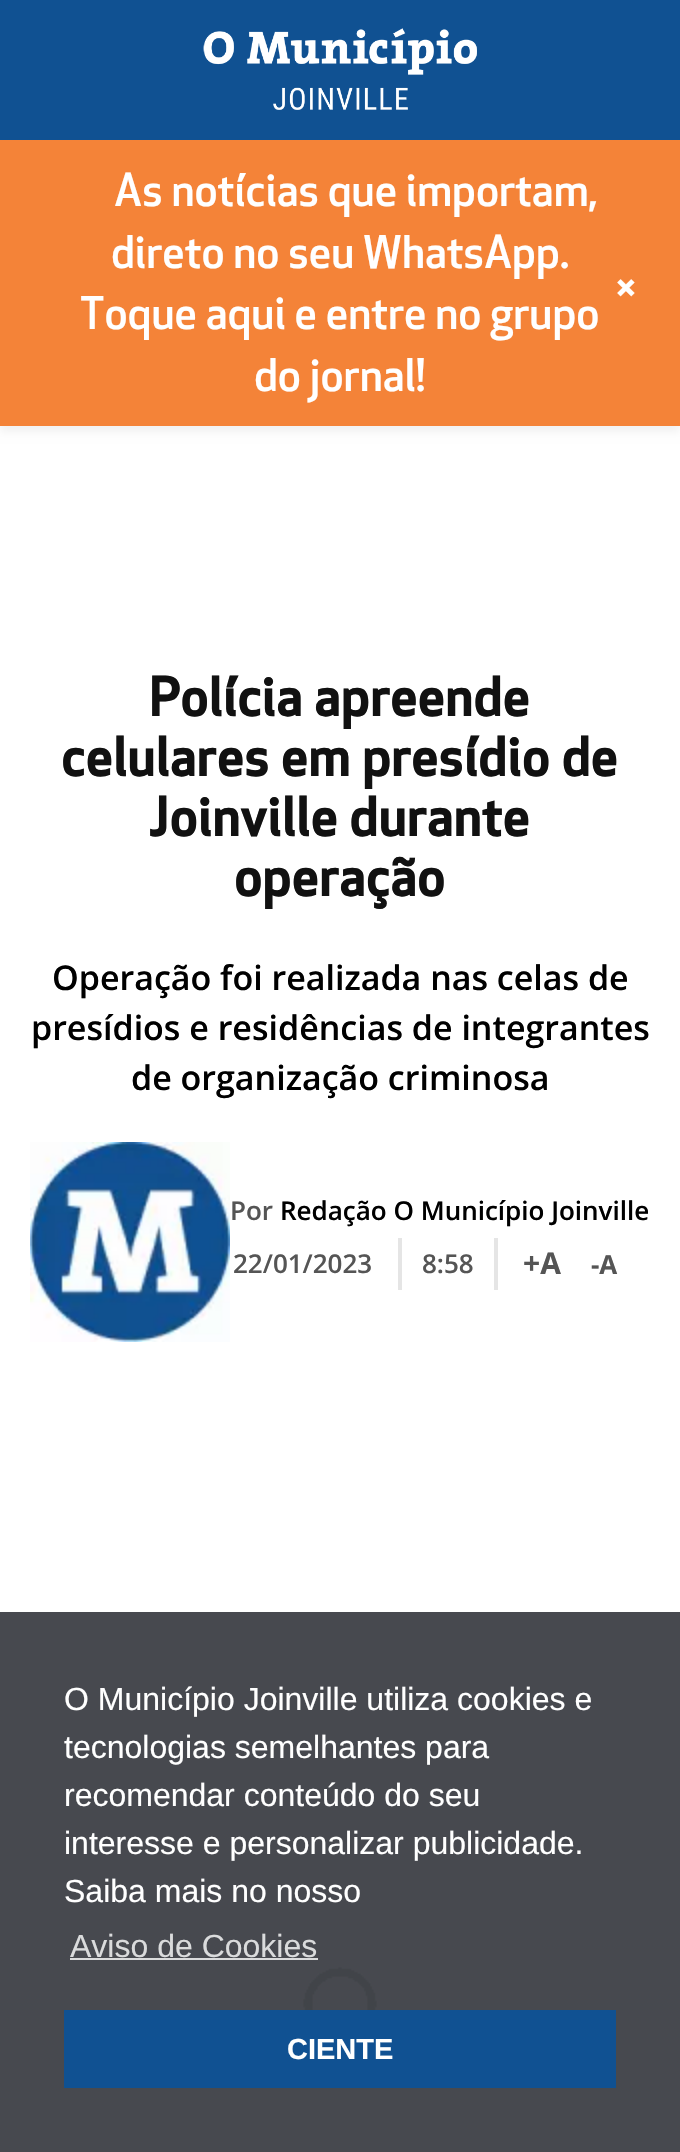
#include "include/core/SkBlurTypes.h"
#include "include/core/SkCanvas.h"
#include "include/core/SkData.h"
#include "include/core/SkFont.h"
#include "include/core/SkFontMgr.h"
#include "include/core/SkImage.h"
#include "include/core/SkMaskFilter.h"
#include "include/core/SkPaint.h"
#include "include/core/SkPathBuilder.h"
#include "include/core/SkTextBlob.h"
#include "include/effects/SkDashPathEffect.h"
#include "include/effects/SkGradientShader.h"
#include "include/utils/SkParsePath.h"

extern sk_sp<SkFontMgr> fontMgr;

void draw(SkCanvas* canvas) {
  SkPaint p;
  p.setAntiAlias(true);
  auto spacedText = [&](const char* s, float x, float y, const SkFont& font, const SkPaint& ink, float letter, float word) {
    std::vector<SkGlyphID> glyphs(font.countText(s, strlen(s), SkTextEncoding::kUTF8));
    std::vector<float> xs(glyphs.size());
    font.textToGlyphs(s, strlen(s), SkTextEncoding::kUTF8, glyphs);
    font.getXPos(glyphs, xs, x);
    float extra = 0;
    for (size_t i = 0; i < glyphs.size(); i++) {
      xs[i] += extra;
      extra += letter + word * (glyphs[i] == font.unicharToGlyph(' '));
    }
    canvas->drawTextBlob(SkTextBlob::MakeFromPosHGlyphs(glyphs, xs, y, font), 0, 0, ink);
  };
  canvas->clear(SK_ColorWHITE);
  p.setColor(SkColorSetRGB(71, 73, 79));
  canvas->drawRect(SkRect::MakeLTRB(0, 1612, 680, 2152), p);
  p.setColor(SkColorSetARGB(13, 0, 0, 0));
  p.setMaskFilter(SkMaskFilter::MakeBlur(kNormal_SkBlurStyle, 4));
  canvas->drawRect(SkRect::MakeLTRB(0, 146, 680, 432), p);
  p.setMaskFilter(nullptr);
  p.setColor(SkColorSetRGB(16, 81, 146));
  canvas->drawRect(SkRect::MakeLTRB(0, 0, 680, 140), p);
  canvas->drawImageRect(SkImages::DeferredFromEncodedData(SkData::MakeFromFileName("images/1.png")), SkRect::MakeLTRB(203, 28, 477, 110), SkSamplingOptions());
  p.setColor(SkColorSetRGB(244, 131, 56));
  canvas->drawRect(SkRect::MakeLTRB(0, 140, 680, 426), p);
  canvas->drawImageRect(SkImages::DeferredFromEncodedData(SkData::MakeFromFileName("images/2.png")), SkRect::MakeLTRB(30, 1142, 230, 1342), SkSamplingOptions());
  p.setColor(SkColorSetRGB(229, 229, 229));
  canvas->drawRect(SkRect::MakeLTRB(494, 1238, 498, 1290), p);
  canvas->drawRect(SkRect::MakeLTRB(398, 1238, 402, 1290), p);
  canvas->drawImageRect(SkImages::DeferredFromEncodedData(SkData::MakeFromFileName("images/3.png")), SkRect::MakeLTRB(303, 1967, 377, 2010), SkSamplingOptions());
  p.setColor(SkColorSetRGB(218, 219, 220));
  canvas->drawRect(SkRect::MakeLTRB(70, 1958, 318, 1960), p);
  p.setColor(SkColorSetRGB(16, 81, 146));
  canvas->drawRect(SkRect::MakeLTRB(64, 2010, 616, 2088), p);
  SkFont font1(fontMgr->matchFamilyStyle("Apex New", SkFontStyle(500, SkFontStyle::kNormal_Width, SkFontStyle::kUpright_Slant)), 44);
  font1.setSubpixel(true);
  p.setColor(SK_ColorWHITE);
  canvas->drawString("As notícias que importam,", 114, 206, font1, p);
  canvas->drawString("direto no seu WhatsApp.", 111, 268, font1, p);
  canvas->drawString("Toque aqui e entre no grupo", 80, 329, font1, p);
  canvas->drawString("do jornal!", 254, 391, font1, p);
  canvas->save();
  canvas->rotate(45, 606, 289);
  canvas->drawString("+", 606, 289, font1, p);
  canvas->restore();
  SkFont font2(fontMgr->matchFamilyStyle("Apex New", SkFontStyle::Bold()), 52);
  font2.setSubpixel(true);
  p.setColor(SkColorSetRGB(17, 17, 17));
  spacedText("Polícia apreende", 149, 716, font2, p, 1, 0);
  spacedText("celulares em presídio de", 61, 776, font2, p, 1, 0);
  spacedText("Joinville durante", 149, 836, font2, p, 1, 0);
  spacedText("operação", 234, 896, font2, p, 1, 0);
  SkFont font3(fontMgr->matchFamilyStyle("Open Sans", SkFontStyle(600, SkFontStyle::kNormal_Width, SkFontStyle::kUpright_Slant)), 34);
  font3.setSubpixel(true);
  p.setColor(SK_ColorBLACK);
  canvas->drawString("Operação foi realizada nas celas de", 52, 990, font3, p);
  canvas->drawString("presídios e residências de integrantes", 31, 1040, font3, p);
  canvas->drawString("de organização criminosa", 131, 1090, font3, p);
  SkFont font4(fontMgr->matchFamilyStyle("Open Sans", SkFontStyle(600, SkFontStyle::kNormal_Width, SkFontStyle::kUpright_Slant)), 26);
  font4.setSubpixel(true);
  p.setColor(SkColorSetRGB(85, 85, 85));
  canvas->drawString("Por", 230, 1220, font4, p);
  p.setColor(SK_ColorBLACK);
  canvas->drawString("Redação O Município Joinville", 280, 1220, font4, p);
  p.setColor(SkColorSetRGB(85, 85, 85));
  canvas->drawString("22/01/2023", 233, 1273, font4, p);
  canvas->drawString("8:58", 422, 1273, font4, p);
  SkFont font5(fontMgr->matchFamilyStyle("Open Sans", SkFontStyle::Bold()), 30);
  font5.setSubpixel(true);
  canvas->drawString("+A", 523, 1274, font5, p);
  SkFont font6(fontMgr->matchFamilyStyle("Open Sans", SkFontStyle::Bold()), 26);
  font6.setSubpixel(true);
  canvas->drawString("-A", 591, 1274, font6, p);
  SkFont font7(fontMgr->matchFamilyStyle("Liberation Sans", SkFontStyle::Normal()), 32);
  font7.setSubpixel(true);
  p.setColor(SK_ColorWHITE);
  canvas->drawString("O Município Joinville utiliza cookies e", 64, 1710, font7, p);
  canvas->drawString("tecnologias semelhantes para", 64, 1758, font7, p);
  canvas->drawString("recomendar conteúdo do seu", 64, 1806, font7, p);
  canvas->drawString("interesse e personalizar publicidade.", 64, 1854, font7, p);
  canvas->drawString("Saiba mais no nosso", 64, 1902, font7, p);
  p.setColor(SkColorSetRGB(218, 219, 220));
  canvas->drawString("Aviso de Cookies", 70, 1957, font7, p);
  SkFont font8(fontMgr->matchFamilyStyle("Liberation Sans", SkFontStyle::Bold()), 29);
  font8.setSubpixel(true);
  p.setColor(SK_ColorWHITE);
  canvas->drawString("CIENTE", 287, 2059, font8, p);
}
